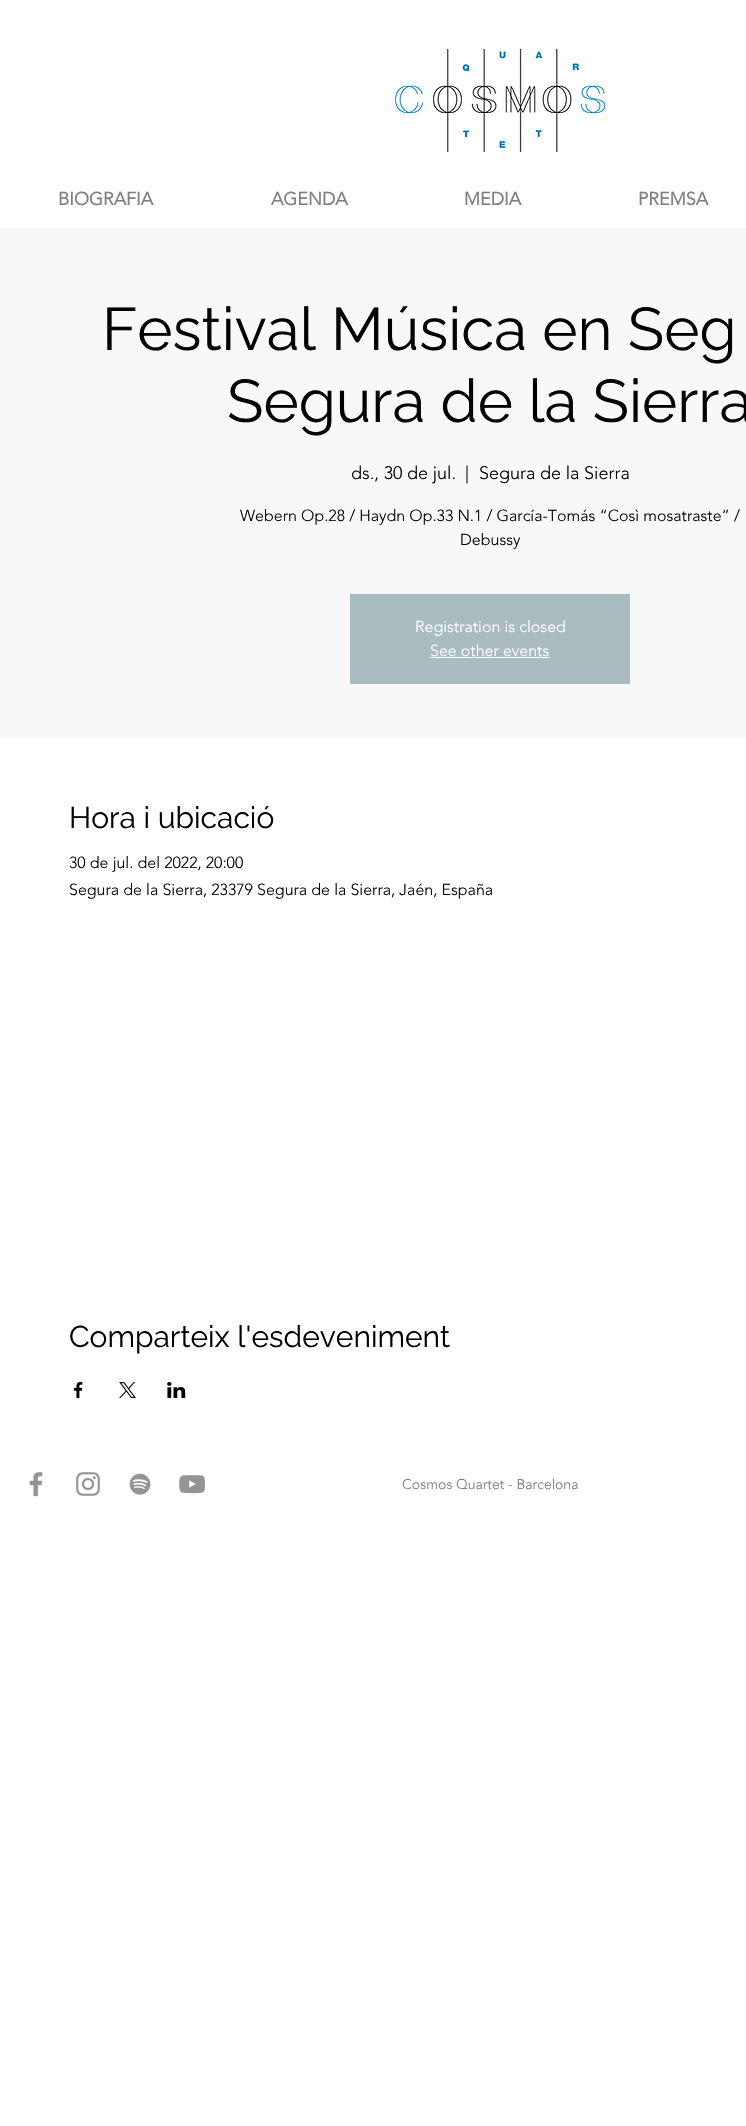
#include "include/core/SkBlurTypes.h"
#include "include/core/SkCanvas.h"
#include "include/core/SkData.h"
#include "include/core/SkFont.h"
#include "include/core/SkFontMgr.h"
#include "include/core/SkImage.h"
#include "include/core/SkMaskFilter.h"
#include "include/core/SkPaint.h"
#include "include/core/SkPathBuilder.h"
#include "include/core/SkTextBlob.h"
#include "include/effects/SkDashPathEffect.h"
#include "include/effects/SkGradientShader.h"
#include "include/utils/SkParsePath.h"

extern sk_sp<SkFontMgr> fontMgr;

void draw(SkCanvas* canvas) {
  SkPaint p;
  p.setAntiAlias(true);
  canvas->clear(SK_ColorWHITE);
  canvas->drawImageRect(SkImages::DeferredFromEncodedData(SkData::MakeFromFileName("images/1.png")), SkRect::MakeLTRB(393, 48, 606, 152), SkSamplingOptions());
  p.setColor(SkColorSetRGB(247, 249, 249));
  canvas->drawRect(SkRect::MakeLTRB(0, 228, 746, 738), p);
  p.setColor(SkColorSetRGB(170, 188, 191));
  canvas->drawRect(SkRect::MakeLTRB(350, 594, 630, 684), p);
  p.setColor(SK_ColorWHITE);
  canvas->drawRect(SkRect::MakeLTRB(430, 657, 550, 658), p);
  canvas->drawImageRect(SkImages::DeferredFromEncodedData(SkData::MakeFromFileName("images/2.png")), SkRect::MakeLTRB(74, 1382, 83, 1398), SkSamplingOptions());
  canvas->drawImageRect(SkImages::DeferredFromEncodedData(SkData::MakeFromFileName("images/3.png")), SkRect::MakeLTRB(119, 1382, 136, 1398), SkSamplingOptions());
  canvas->drawImageRect(SkImages::DeferredFromEncodedData(SkData::MakeFromFileName("images/4.png")), SkRect::MakeLTRB(167, 1382, 186, 1398), SkSamplingOptions());
  canvas->drawImageRect(SkImages::DeferredFromEncodedData(SkData::MakeFromFileName("images/5.png")), SkRect::MakeLTRB(29, 1472, 43, 1497), SkSamplingOptions());
  canvas->drawImageRect(SkImages::DeferredFromEncodedData(SkData::MakeFromFileName("images/6.png")), SkRect::MakeLTRB(76, 1472, 100, 1496), SkSamplingOptions());
  canvas->drawImageRect(SkImages::DeferredFromEncodedData(SkData::MakeFromFileName("images/7.png")), SkRect::MakeLTRB(129, 1473, 151, 1495), SkSamplingOptions());
  canvas->drawImageRect(SkImages::DeferredFromEncodedData(SkData::MakeFromFileName("images/8.png")), SkRect::MakeLTRB(179, 1475, 206, 1494), SkSamplingOptions());
  SkFont font1(fontMgr->matchFamilyStyle("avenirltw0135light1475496", SkFontStyle::Bold()), 18);
  font1.setSubpixel(true);
  p.setColor(SkColorSetRGB(128, 128, 128));
  canvas->drawString("BIOGRAFIA", 58, 205, font1, p);
  canvas->drawString("AGENDA", 271, 205, font1, p);
  canvas->drawString("MEDIA", 464, 205, font1, p);
  canvas->drawString("PREMSA", 638, 205, font1, p);
  SkFont font2(fontMgr->matchFamilyStyle("Raleway", SkFontStyle::Normal()), 60);
  font2.setSubpixel(true);
  p.setColor(SK_ColorBLACK);
  canvas->drawString("Festival Música en Seg", 102, 350, font2, p);
  canvas->drawString("Segura de la Sierra", 227, 422, font2, p);
  SkFont font3(fontMgr->matchFamilyStyle("avenirltw0135light1475496", SkFontStyle(300, SkFontStyle::kNormal_Width, SkFontStyle::kUpright_Slant)), 18);
  font3.setSubpixel(true);
  canvas->drawString("ds., 30 de jul.", 351, 479, font3, p);
  canvas->drawString("|", 465, 479, font3, p);
  canvas->drawString("Segura de la Sierra", 479, 479, font3, p);
  SkFont font4(fontMgr->matchFamilyStyle("avenirltw0135light1475496", SkFontStyle(300, SkFontStyle::kNormal_Width, SkFontStyle::kUpright_Slant)), 16);
  font4.setSubpixel(true);
  canvas->drawString("Webern Op.28 / Haydn Op.33 N.1 / García-Tomás “Così mosatraste” /", 240, 521, font4, p);
  canvas->drawString("Debussy", 460, 545, font4, p);
  p.setColor(SK_ColorWHITE);
  canvas->drawString("Registration is closed", 415, 632, font4, p);
  canvas->drawString("See other events", 430, 656, font4, p);
  SkFont font5(fontMgr->matchFamilyStyle("Raleway", SkFontStyle::Normal()), 30);
  font5.setSubpixel(true);
  p.setColor(SK_ColorBLACK);
  canvas->drawString("Hora i ubicació", 69, 828, font5, p);
  canvas->drawString("30 de jul. del 2022, 20:00", 69, 868, font4, p);
  canvas->drawString("Segura de la Sierra, 23379 Segura de la Sierra, Jaén, España", 69, 895, font4, p);
  canvas->drawString("Comparteix l'esdeveniment", 69, 1347, font5, p);
  SkFont font6(fontMgr->matchFamilyStyle("avenirltw0135light1475496", SkFontStyle(300, SkFontStyle::kNormal_Width, SkFontStyle::kUpright_Slant)), 14);
  font6.setSubpixel(true);
  p.setColor(SkColorSetRGB(121, 121, 121));
  canvas->drawString("Cosmos Quartet - Barcelona", 402, 1489, font6, p);
}
